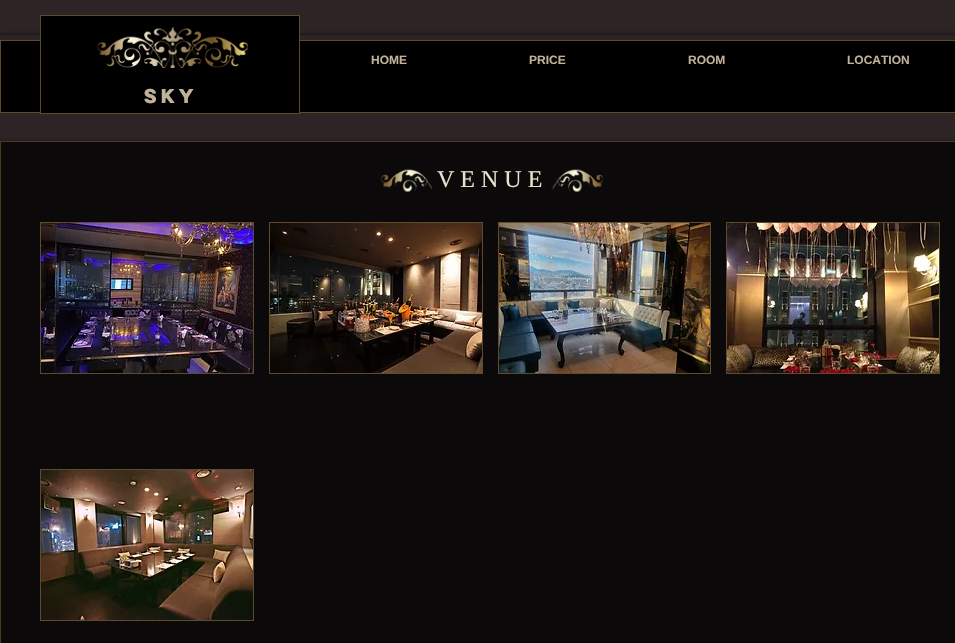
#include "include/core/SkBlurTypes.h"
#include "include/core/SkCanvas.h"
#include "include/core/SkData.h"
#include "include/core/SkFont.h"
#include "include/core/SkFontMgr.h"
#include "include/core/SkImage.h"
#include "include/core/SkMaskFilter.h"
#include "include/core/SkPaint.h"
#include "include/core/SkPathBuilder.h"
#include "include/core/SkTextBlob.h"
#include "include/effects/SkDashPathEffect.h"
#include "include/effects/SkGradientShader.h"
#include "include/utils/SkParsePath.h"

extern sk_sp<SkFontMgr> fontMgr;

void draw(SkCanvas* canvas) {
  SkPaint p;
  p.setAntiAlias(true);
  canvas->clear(SkColorSetRGB(45, 37, 37));
  canvas->save();
  canvas->clipRect(SkRect::MakeLTRB(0, 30, 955, 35));
  p.setColor(SkColorSetARGB(179, 0, 0, 0));
  p.setMaskFilter(SkMaskFilter::MakeBlur(kNormal_SkBlurStyle, 2.5f));
  canvas->drawRect(SkRect::MakeLTRB(0, 35, 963, 86), p);
  p.setMaskFilter(nullptr);
  canvas->restore();
  p.setColor(SK_ColorBLACK);
  canvas->drawRect(SkRect::MakeLTRB(0.5f, 40.5f, 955.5f, 112.5f), p);
  p.setStyle(SkPaint::kStroke_Style);
  p.setStrokeWidth(1);
  p.setColor(SkColorSetRGB(93, 75, 43));
  canvas->drawRect(SkRect::MakeLTRB(0.5f, 40.5f, 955.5f, 112.5f), p);
  p.setStyle(SkPaint::kFill_Style);
  p.setColor(SK_ColorBLACK);
  canvas->drawRect(SkRect::MakeLTRB(40.5f, 15.5f, 299.5f, 113.5f), p);
  p.setStyle(SkPaint::kStroke_Style);
  p.setColor(SkColorSetRGB(93, 75, 43));
  canvas->drawRect(SkRect::MakeLTRB(40.5f, 15.5f, 299.5f, 113.5f), p);
  canvas->drawImageRect(SkImages::DeferredFromEncodedData(SkData::MakeFromFileName("images/1.png")), SkRect::MakeLTRB(96, 26, 248, 68), SkSamplingOptions());
  p.setStyle(SkPaint::kFill_Style);
  p.setColor(SkColorSetARGB(153, 0, 0, 0));
  p.setMaskFilter(SkMaskFilter::MakeBlur(kNormal_SkBlurStyle, 2));
  canvas->drawRect(SkRect::MakeLTRB(0, 142, 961, 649), p);
  p.setMaskFilter(nullptr);
  p.setColor(SkColorSetRGB(11, 9, 9));
  canvas->drawRect(SkRect::MakeLTRB(0.5f, 141.5f, 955.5f, 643.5f), p);
  p.setStyle(SkPaint::kStroke_Style);
  p.setColor(SkColorSetRGB(73, 59, 35));
  canvas->drawRect(SkRect::MakeLTRB(0.5f, 141.5f, 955.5f, 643.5f), p);
  canvas->drawImageRect(SkImages::DeferredFromEncodedData(SkData::MakeFromFileName("images/2.png")), SkRect::MakeLTRB(380, 169, 432, 193), SkSamplingOptions());
  canvas->drawImageRect(SkImages::DeferredFromEncodedData(SkData::MakeFromFileName("images/3.png")), SkRect::MakeLTRB(551, 169, 603, 193), SkSamplingOptions());
  p.setStyle(SkPaint::kFill_Style);
  p.setColor(SkColorSetRGB(93, 75, 43));
  canvas->drawRect(SkRect::MakeLTRB(40, 222, 254, 374), p);
  canvas->drawImageRect(SkImages::DeferredFromEncodedData(SkData::MakeFromFileName("images/4.png")), SkRect::MakeLTRB(41, 223, 253, 373), SkSamplingOptions());
  canvas->drawRect(SkRect::MakeLTRB(269, 222, 483, 374), p);
  canvas->drawImageRect(SkImages::DeferredFromEncodedData(SkData::MakeFromFileName("images/5.png")), SkRect::MakeLTRB(270, 223, 482, 373), SkSamplingOptions());
  canvas->drawRect(SkRect::MakeLTRB(498, 222, 711, 374), p);
  canvas->drawImageRect(SkImages::DeferredFromEncodedData(SkData::MakeFromFileName("images/6.png")), SkRect::MakeLTRB(499, 223, 710, 373), SkSamplingOptions());
  canvas->drawRect(SkRect::MakeLTRB(726, 222, 940, 374), p);
  canvas->drawImageRect(SkImages::DeferredFromEncodedData(SkData::MakeFromFileName("images/7.png")), SkRect::MakeLTRB(727, 223, 939, 373), SkSamplingOptions());
  canvas->drawRect(SkRect::MakeLTRB(40, 469, 254, 621), p);
  canvas->drawImageRect(SkImages::DeferredFromEncodedData(SkData::MakeFromFileName("images/8.png")), SkRect::MakeLTRB(41, 470, 253, 620), SkSamplingOptions());
  SkFont font1(fontMgr->matchFamilyStyle("Liberation Sans", SkFontStyle::Bold()), 12);
  font1.setSubpixel(true);
  p.setColor(SkColorSetRGB(193, 178, 151));
  canvas->drawString("HOME", 371, 64, font1, p);
  canvas->drawString("PRICE", 529, 64, font1, p);
  canvas->drawString("ROOM", 688, 64, font1, p);
  canvas->drawString("LOCATION", 847, 64, font1, p);
  SkFont font2(fontMgr->matchFamilyStyle("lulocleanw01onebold", SkFontStyle::Bold()), 18);
  font2.setSubpixel(true);
  canvas->drawString("SKY", 144, 103, font2, p);
  SkFont font3(fontMgr->matchFamilyStyle("Liberation Serif", SkFontStyle::Normal()), 24);
  font3.setSubpixel(true);
  p.setColor(SkColorSetRGB(234, 224, 206));
  canvas->drawString("V E N U E", 437, 187, font3, p);
}
